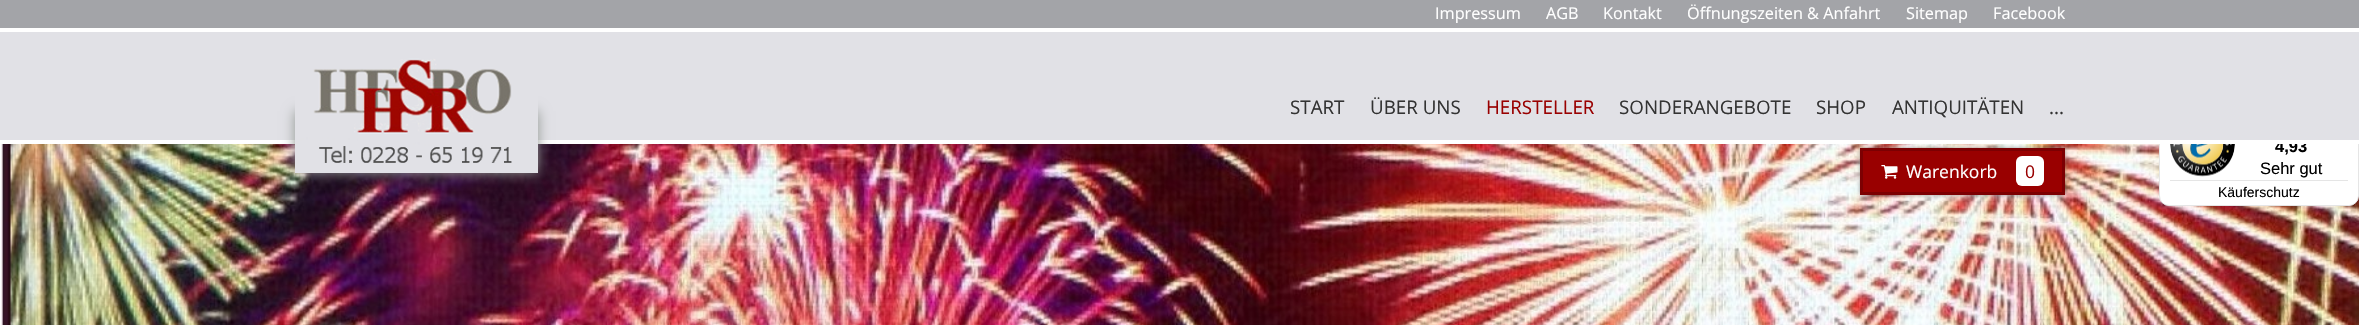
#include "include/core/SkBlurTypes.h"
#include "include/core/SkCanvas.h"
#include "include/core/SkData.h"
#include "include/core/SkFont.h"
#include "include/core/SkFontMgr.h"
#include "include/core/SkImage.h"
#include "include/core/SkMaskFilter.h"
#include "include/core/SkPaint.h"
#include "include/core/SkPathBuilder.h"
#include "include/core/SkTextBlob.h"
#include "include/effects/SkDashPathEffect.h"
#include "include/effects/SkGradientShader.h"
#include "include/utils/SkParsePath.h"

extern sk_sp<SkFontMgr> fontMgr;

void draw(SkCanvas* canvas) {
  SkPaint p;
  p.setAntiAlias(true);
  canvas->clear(SK_ColorWHITE);
  p.setColor(SkColorSetRGB(163, 164, 168));
  canvas->drawRect(SkRect::MakeLTRB(0, 0, 2359, 28), p);
  canvas->drawImageRect(SkImages::DeferredFromEncodedData(SkData::MakeFromFileName("images/4.png")), SkRect::MakeLTRB(1, 144, 2359, 325), SkSamplingOptions());
  p.setColor(SK_ColorWHITE);
  canvas->drawRoundRect(SkRect::MakeLTRB(2159.5f, 106.5f, 2358.5f, 205.5f), 9.5f, 9.5f, p);
  p.setStyle(SkPaint::kStroke_Style);
  p.setStrokeWidth(1);
  p.setColor(SkColorSetRGB(229, 229, 229));
  canvas->drawRoundRect(SkRect::MakeLTRB(2159.5f, 106.5f, 2358.5f, 205.5f), 9.5f, 9.5f, p);
  p.setStyle(SkPaint::kFill_Style);
  p.setColor(SkColorSetRGB(225, 225, 230));
  canvas->drawRect(SkRect::MakeLTRB(0, 32, 2359, 140), p);
  p.setColor(SkColorSetRGB(145, 151, 146));
  p.setMaskFilter(SkMaskFilter::MakeBlur(kNormal_SkBlurStyle, 6));
  canvas->drawRect(SkRect::MakeLTRB(295, 111, 538, 173), p);
  p.setMaskFilter(nullptr);
  canvas->drawImageRect(SkImages::DeferredFromEncodedData(SkData::MakeFromFileName("images/1.png")), SkRect::MakeLTRB(295, 58, 538, 163), SkSamplingOptions());
  p.setColor(SkColorSetRGB(225, 225, 230));
  canvas->drawRect(SkRect::MakeLTRB(295, 163, 538, 173), p);
  p.setColor(SkColorSetARGB(128, 51, 51, 51));
  p.setMaskFilter(SkMaskFilter::MakeBlur(kNormal_SkBlurStyle, 2));
  canvas->drawRect(SkRect::MakeLTRB(1860, 148, 2065, 195), p);
  p.setMaskFilter(nullptr);
  p.setColor(SkColorSetRGB(153, 0, 0));
  canvas->drawRect(SkRect::MakeLTRB(1861.5f, 149.5f, 2063.5f, 193.5f), p);
  p.setStyle(SkPaint::kStroke_Style);
  p.setStrokeWidth(3);
  p.setColor(SkColorSetRGB(124, 0, 2));
  canvas->drawRect(SkRect::MakeLTRB(1861.5f, 149.5f, 2063.5f, 193.5f), p);
  canvas->drawImageRect(SkImages::DeferredFromEncodedData(SkData::MakeFromFileName("images/2.png")), SkRect::MakeLTRB(1881, 165, 1898, 179), SkSamplingOptions());
  p.setStyle(SkPaint::kFill_Style);
  p.setColor(SK_ColorWHITE);
  canvas->drawRoundRect(SkRect::MakeLTRB(2016, 156, 2044, 186), 6, 6, p);
  canvas->drawImageRect(SkImages::DeferredFromEncodedData(SkData::MakeFromFileName("images/3.png")), SkRect::MakeLTRB(2170, 144, 2235, 177), SkSamplingOptions());
  p.setColor(SkColorSetRGB(229, 229, 229));
  canvas->drawRect(SkRect::MakeLTRB(2170, 180, 2348, 181), p);
  SkFont font1(fontMgr->matchFamilyStyle("Open Sans", SkFontStyle::Normal()), 16.25f);
  font1.setSubpixel(true);
  p.setColor(SK_ColorWHITE);
  canvas->drawString("Impressum", 1435, 19, font1, p);
  canvas->drawString("AGB", 1546, 19, font1, p);
  canvas->drawString("Kontakt", 1603, 19, font1, p);
  canvas->drawString("Öffnungszeiten & Anfahrt", 1687, 19, font1, p);
  canvas->drawString("Sitemap", 1906, 19, font1, p);
  canvas->drawString("Facebook", 1993, 19, font1, p);
  SkFont font2(fontMgr->matchFamilyStyle("Open Sans", SkFontStyle::Normal()), 18.75f);
  font2.setSubpixel(true);
  p.setColor(SkColorSetRGB(51, 51, 51));
  canvas->drawString("START", 1290, 114, font2, p);
  canvas->drawString("ÜBER UNS", 1370, 114, font2, p);
  p.setColor(SkColorSetRGB(153, 0, 0));
  canvas->drawString("HERSTELLER", 1486, 114, font2, p);
  p.setColor(SkColorSetRGB(51, 51, 51));
  canvas->drawString("SONDERANGEBOTE", 1619, 114, font2, p);
  canvas->drawString("SHOP", 1816, 114, font2, p);
  canvas->drawString("ANTIQUITÄTEN", 1892, 114, font2, p);
  canvas->drawString("...", 2049, 114, font2, p);
  SkFont font3(fontMgr->matchFamilyStyle("Open Sans", SkFontStyle::Normal()), 17.5f);
  font3.setSubpixel(true);
  p.setColor(SK_ColorWHITE);
  canvas->drawString("Warenkorb", 1906, 178, font3, p);
  p.setColor(SkColorSetRGB(153, 0, 0));
  canvas->drawString("0", 2025, 178, font3, p);
  SkFont font4(fontMgr->matchFamilyStyle("Liberation Sans", SkFontStyle::Bold()), 16.5f);
  font4.setSubpixel(true);
  p.setColor(SK_ColorBLACK);
  canvas->drawString("4,93", 2275, 152, font4, p);
  p.setColor(SK_ColorWHITE);
  canvas->drawRect(SkRect::MakeLTRB(2159, 140, 2359, 144), p);
  SkFont font5(fontMgr->matchFamilyStyle("Liberation Sans", SkFontStyle::Normal()), 16.5f);
  font5.setSubpixel(true);
  p.setColor(SK_ColorBLACK);
  canvas->drawString("Sehr gut", 2260, 174, font5, p);
  SkFont font6(fontMgr->matchFamilyStyle("Liberation Sans", SkFontStyle::Normal()), 14);
  font6.setSubpixel(true);
  canvas->drawString("Käuferschutz", 2218, 197, font6, p);
}
